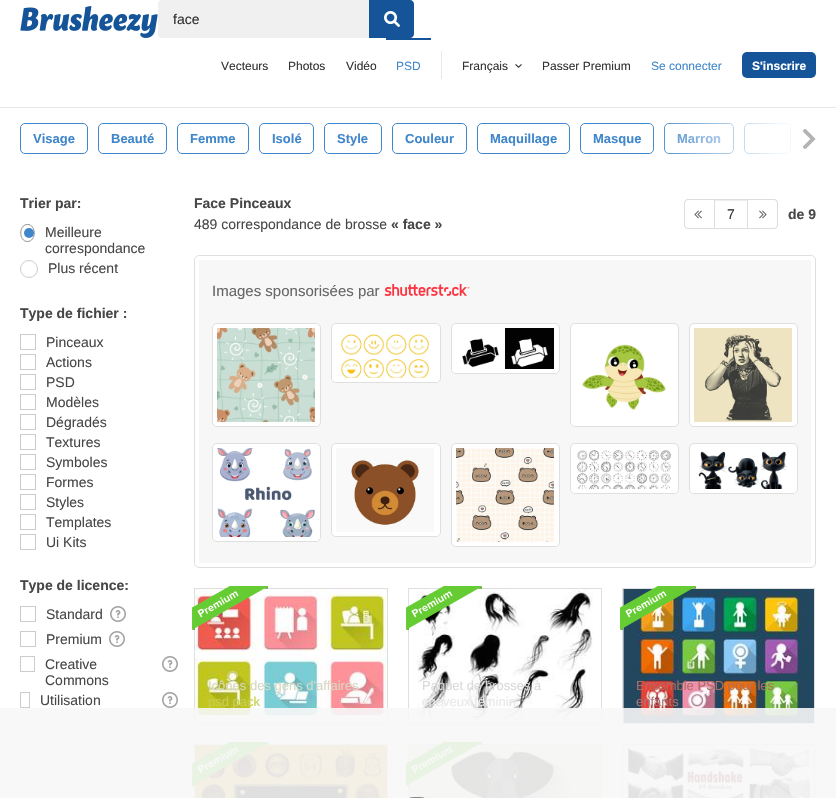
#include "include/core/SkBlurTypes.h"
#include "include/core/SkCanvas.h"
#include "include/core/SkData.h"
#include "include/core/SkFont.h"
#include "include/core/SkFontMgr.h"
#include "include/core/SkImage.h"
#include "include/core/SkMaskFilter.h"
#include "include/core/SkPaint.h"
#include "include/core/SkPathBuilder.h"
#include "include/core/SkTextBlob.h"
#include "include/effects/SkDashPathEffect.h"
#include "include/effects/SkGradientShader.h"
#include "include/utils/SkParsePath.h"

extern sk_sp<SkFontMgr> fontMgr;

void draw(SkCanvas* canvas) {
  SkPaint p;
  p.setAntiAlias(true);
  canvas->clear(SK_ColorWHITE);
  p.setColor(SkColorSetRGB(232, 232, 232));
  canvas->drawRect(SkRect::MakeLTRB(0, 107, 836, 108), p);
  canvas->drawImageRect(SkImages::DeferredFromEncodedData(SkData::MakeFromFileName("images/1.png")), SkRect::MakeLTRB(20, 6, 158, 38), SkSamplingOptions());
  p.setColor(SkColorSetRGB(240, 240, 240));
  canvas->drawRoundRect(SkRect::MakeLTRB(158, 0, 414, 38), 4, 4, p);
  p.setColor(SkColorSetRGB(21, 84, 153));
  canvas->drawPath(SkPathBuilder().moveTo(369, 0).lineTo(410, 0).cubicTo(412, 0, 414, 2, 414, 4).lineTo(414, 34).cubicTo(414, 36, 412, 38, 410, 38).lineTo(369, 38).close().detach(), p);
  canvas->drawImageRect(SkImages::DeferredFromEncodedData(SkData::MakeFromFileName("images/2.png")), SkRect::MakeLTRB(384, 11, 400, 27), SkSamplingOptions());
  canvas->drawRect(SkRect::MakeLTRB(386, 38, 431, 40), p);
  p.setColor(SkColorSetRGB(232, 232, 232));
  canvas->drawRect(SkRect::MakeLTRB(441, 51, 442, 79), p);
  canvas->drawImageRect(SkImages::DeferredFromEncodedData(SkData::MakeFromFileName("images/3.png")), SkRect::MakeLTRB(515, 64, 522, 68), SkSamplingOptions());
  p.setColor(SkColorSetRGB(21, 84, 153));
  canvas->drawRoundRect(SkRect::MakeLTRB(742, 52, 816, 78), 5, 5, p);
  p.setStyle(SkPaint::kStroke_Style);
  p.setStrokeWidth(1);
  p.setColor(SkColorSetRGB(63, 134, 202));
  canvas->drawRoundRect(SkRect::MakeLTRB(20.5f, 123.5f, 87.5f, 153.5f), 4.5f, 4.5f, p);
  canvas->drawRoundRect(SkRect::MakeLTRB(98.5f, 123.5f, 166.5f, 153.5f), 4.5f, 4.5f, p);
  canvas->drawRoundRect(SkRect::MakeLTRB(177.5f, 123.5f, 248.5f, 153.5f), 4.5f, 4.5f, p);
  canvas->drawRoundRect(SkRect::MakeLTRB(259.5f, 123.5f, 313.5f, 153.5f), 4.5f, 4.5f, p);
  canvas->drawRoundRect(SkRect::MakeLTRB(324.5f, 123.5f, 381.5f, 153.5f), 4.5f, 4.5f, p);
  canvas->drawRoundRect(SkRect::MakeLTRB(392.5f, 123.5f, 466.5f, 153.5f), 4.5f, 4.5f, p);
  canvas->drawRoundRect(SkRect::MakeLTRB(477.5f, 123.5f, 569.5f, 153.5f), 4.5f, 4.5f, p);
  canvas->drawRoundRect(SkRect::MakeLTRB(580.5f, 123.5f, 653.5f, 153.5f), 4.5f, 4.5f, p);
  canvas->drawRoundRect(SkRect::MakeLTRB(664.5f, 123.5f, 733.5f, 153.5f), 4.5f, 4.5f, p);
  canvas->drawRoundRect(SkRect::MakeLTRB(744.5f, 123.5f, 790.5f, 153.5f), 4.5f, 4.5f, p);
  canvas->save();
  canvas->clipRect(SkRect::MakeLTRB(20, 123, 816, 167));
  canvas->drawRoundRect(SkRect::MakeLTRB(801.5f, 123.5f, 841.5f, 153.5f), 4.5f, 4.5f, p);
  canvas->restore();
  p.setColor(SkColorSetRGB(144, 144, 144));
  canvas->drawPath(SkPathBuilder().moveTo(27.5f, 224.5f).cubicTo(36.5f, 224.5f, 36.5f, 241.5f, 27.5f, 241.5f).cubicTo(18.5f, 241.5f, 18.5f, 224.5f, 27.5f, 224.5f).close().detach(), p);
  p.setStyle(SkPaint::kFill_Style);
  p.setColor(SkColorSetRGB(63, 134, 202));
  canvas->drawCircle(29, 233, 5, p);
  p.setStyle(SkPaint::kStroke_Style);
  p.setColor(SkColorSetRGB(204, 204, 204));
  canvas->drawCircle(29, 269, 8.5f, p);
  canvas->drawRect(SkRect::MakeLTRB(20.5f, 334.5f, 35.5f, 349.5f), p);
  canvas->drawRect(SkRect::MakeLTRB(20.5f, 354.5f, 35.5f, 369.5f), p);
  canvas->drawRect(SkRect::MakeLTRB(20.5f, 374.5f, 35.5f, 389.5f), p);
  canvas->drawRect(SkRect::MakeLTRB(20.5f, 394.5f, 35.5f, 409.5f), p);
  canvas->drawRect(SkRect::MakeLTRB(20.5f, 414.5f, 35.5f, 429.5f), p);
  canvas->drawRect(SkRect::MakeLTRB(20.5f, 434.5f, 35.5f, 449.5f), p);
  canvas->drawRect(SkRect::MakeLTRB(20.5f, 454.5f, 35.5f, 469.5f), p);
  canvas->drawRect(SkRect::MakeLTRB(20.5f, 474.5f, 35.5f, 489.5f), p);
  canvas->drawRect(SkRect::MakeLTRB(20.5f, 494.5f, 35.5f, 509.5f), p);
  canvas->drawRect(SkRect::MakeLTRB(20.5f, 514.5f, 35.5f, 529.5f), p);
  canvas->drawRect(SkRect::MakeLTRB(20.5f, 534.5f, 35.5f, 549.5f), p);
  canvas->drawRect(SkRect::MakeLTRB(20.5f, 606.5f, 35.5f, 621.5f), p);
  canvas->drawImageRect(SkImages::DeferredFromEncodedData(SkData::MakeFromFileName("images/5.png")), SkRect::MakeLTRB(110, 606, 126, 622), SkSamplingOptions());
  canvas->drawRect(SkRect::MakeLTRB(20.5f, 631.5f, 35.5f, 646.5f), p);
  canvas->drawImageRect(SkImages::DeferredFromEncodedData(SkData::MakeFromFileName("images/5.png")), SkRect::MakeLTRB(109, 631, 125, 647), SkSamplingOptions());
  canvas->drawRect(SkRect::MakeLTRB(20.5f, 656.5f, 34.5f, 671.5f), p);
  canvas->drawImageRect(SkImages::DeferredFromEncodedData(SkData::MakeFromFileName("images/5.png")), SkRect::MakeLTRB(162, 656, 178, 672), SkSamplingOptions());
  canvas->drawRect(SkRect::MakeLTRB(20.5f, 692.5f, 29.5f, 707.5f), p);
  canvas->drawImageRect(SkImages::DeferredFromEncodedData(SkData::MakeFromFileName("images/5.png")), SkRect::MakeLTRB(162, 692, 178, 708), SkSamplingOptions());
  p.setStyle(SkPaint::kFill_Style);
  p.setColor(SkColorSetRGB(221, 221, 221));
  canvas->drawPath(SkPathBuilder(SkPathFillType::kEvenOdd).moveTo(688, 199).lineTo(714, 199).lineTo(714, 229).lineTo(688, 229).cubicTo(686, 229, 684, 227, 684, 225).lineTo(684, 203).cubicTo(684, 201, 686, 199, 688, 199).close().moveTo(688, 200).lineTo(714, 200).lineTo(714, 228).lineTo(688, 228).cubicTo(686.5f, 228, 685, 226.5f, 685, 225).lineTo(685, 203).cubicTo(685, 201.5f, 686.5f, 200, 688, 200).close().detach(), p);
  canvas->drawImageRect(SkImages::DeferredFromEncodedData(SkData::MakeFromFileName("images/6.png")), SkRect::MakeLTRB(694, 210, 702, 219), SkSamplingOptions());
  p.setColor(SkColorSetRGB(236, 236, 236));
  canvas->drawRect(SkRect::MakeLTRB(715, 200, 747, 201), p);
  p.setStyle(SkPaint::kStroke_Style);
  p.setColor(SkColorSetRGB(221, 221, 221));
  canvas->drawRect(SkRect::MakeLTRB(714.5f, 199.5f, 747.5f, 228.5f), p);
  p.setStyle(SkPaint::kFill_Style);
  canvas->drawPath(SkPathBuilder(SkPathFillType::kEvenOdd).moveTo(748, 199).lineTo(774, 199).cubicTo(776, 199, 778, 201, 778, 203).lineTo(778, 225).cubicTo(778, 227, 776, 229, 774, 229).lineTo(748, 229).close().moveTo(748, 200).lineTo(774, 200).cubicTo(775.5f, 200, 777, 201.5f, 777, 203).lineTo(777, 225).cubicTo(777, 226.5f, 775.5f, 228, 774, 228).lineTo(748, 228).close().detach(), p);
  canvas->drawImageRect(SkImages::DeferredFromEncodedData(SkData::MakeFromFileName("images/7.png")), SkRect::MakeLTRB(759, 210, 767, 219), SkSamplingOptions());
  p.setStyle(SkPaint::kStroke_Style);
  p.setColor(SkColorSetRGB(223, 223, 223));
  canvas->drawRoundRect(SkRect::MakeLTRB(194.5f, 255.5f, 815.5f, 567.5f), 4.5f, 4.5f, p);
  p.setStyle(SkPaint::kFill_Style);
  p.setColor(SkColorSetRGB(247, 247, 247));
  canvas->drawRect(SkRect::MakeLTRB(199, 260, 811, 563), p);
  canvas->drawImageRect(SkImages::DeferredFromEncodedData(SkData::MakeFromFileName("images/8.png")), SkRect::MakeLTRB(384, 284, 470, 296), SkSamplingOptions());
  p.setColor(SK_ColorWHITE);
  canvas->drawRoundRect(SkRect::MakeLTRB(212.5f, 323.5f, 320.5f, 426.5f), 4.5f, 4.5f, p);
  p.setStyle(SkPaint::kStroke_Style);
  p.setColor(SkColorSetRGB(223, 223, 223));
  canvas->drawRoundRect(SkRect::MakeLTRB(212.5f, 323.5f, 320.5f, 426.5f), 4.5f, 4.5f, p);
  canvas->drawImageRect(SkImages::DeferredFromEncodedData(SkData::MakeFromFileName("images/9.png")), SkRect::MakeLTRB(217, 328, 315, 422), SkSamplingOptions());
  p.setStyle(SkPaint::kFill_Style);
  p.setColor(SK_ColorWHITE);
  canvas->drawPath(SkPathBuilder().moveTo(213, 422).lineTo(320, 422).cubicTo(320, 424, 318, 426, 316, 426).lineTo(217, 426).cubicTo(215, 426, 213, 424, 213, 422).close().detach(), p);
  canvas->drawRoundRect(SkRect::MakeLTRB(331.5f, 323.5f, 440.5f, 382.5f), 4.5f, 4.5f, p);
  p.setStyle(SkPaint::kStroke_Style);
  p.setColor(SkColorSetRGB(223, 223, 223));
  canvas->drawRoundRect(SkRect::MakeLTRB(331.5f, 323.5f, 440.5f, 382.5f), 4.5f, 4.5f, p);
  canvas->drawImageRect(SkImages::DeferredFromEncodedData(SkData::MakeFromFileName("images/10.png")), SkRect::MakeLTRB(340, 334, 430, 378), SkSamplingOptions());
  p.setStyle(SkPaint::kFill_Style);
  p.setColor(SK_ColorWHITE);
  canvas->drawPath(SkPathBuilder().moveTo(332, 378).lineTo(440, 378).cubicTo(440, 380, 438, 382, 436, 382).lineTo(336, 382).cubicTo(334, 382, 332, 380, 332, 378).close().detach(), p);
  canvas->drawRoundRect(SkRect::MakeLTRB(451.5f, 323.5f, 559.5f, 373.5f), 4.5f, 4.5f, p);
  p.setStyle(SkPaint::kStroke_Style);
  p.setColor(SkColorSetRGB(223, 223, 223));
  canvas->drawRoundRect(SkRect::MakeLTRB(451.5f, 323.5f, 559.5f, 373.5f), 4.5f, 4.5f, p);
  canvas->drawImageRect(SkImages::DeferredFromEncodedData(SkData::MakeFromFileName("images/11.png")), SkRect::MakeLTRB(462, 328, 554, 369), SkSamplingOptions());
  p.setStyle(SkPaint::kFill_Style);
  p.setColor(SK_ColorWHITE);
  canvas->drawPath(SkPathBuilder().moveTo(452, 369).lineTo(559, 369).cubicTo(559, 371, 557, 373, 555, 373).lineTo(456, 373).cubicTo(454, 373, 452, 371, 452, 369).close().detach(), p);
  canvas->drawRoundRect(SkRect::MakeLTRB(570.5f, 323.5f, 678.5f, 426.5f), 4.5f, 4.5f, p);
  p.setStyle(SkPaint::kStroke_Style);
  p.setColor(SkColorSetRGB(223, 223, 223));
  canvas->drawRoundRect(SkRect::MakeLTRB(570.5f, 323.5f, 678.5f, 426.5f), 4.5f, 4.5f, p);
  canvas->drawImageRect(SkImages::DeferredFromEncodedData(SkData::MakeFromFileName("images/12.png")), SkRect::MakeLTRB(582, 344, 666, 411), SkSamplingOptions());
  p.setStyle(SkPaint::kFill_Style);
  p.setColor(SK_ColorWHITE);
  canvas->drawPath(SkPathBuilder().moveTo(571, 422).lineTo(678, 422).cubicTo(678, 424, 676, 426, 674, 426).lineTo(575, 426).cubicTo(573, 426, 571, 424, 571, 422).close().detach(), p);
  canvas->drawRoundRect(SkRect::MakeLTRB(689.5f, 323.5f, 797.5f, 426.5f), 4.5f, 4.5f, p);
  p.setStyle(SkPaint::kStroke_Style);
  p.setColor(SkColorSetRGB(223, 223, 223));
  canvas->drawRoundRect(SkRect::MakeLTRB(689.5f, 323.5f, 797.5f, 426.5f), 4.5f, 4.5f, p);
  canvas->drawImageRect(SkImages::DeferredFromEncodedData(SkData::MakeFromFileName("images/13.png")), SkRect::MakeLTRB(694, 328, 792, 422), SkSamplingOptions());
  p.setStyle(SkPaint::kFill_Style);
  p.setColor(SK_ColorWHITE);
  canvas->drawPath(SkPathBuilder().moveTo(690, 422).lineTo(797, 422).cubicTo(797, 424, 795, 426, 793, 426).lineTo(694, 426).cubicTo(692, 426, 690, 424, 690, 422).close().detach(), p);
  canvas->drawRoundRect(SkRect::MakeLTRB(212.5f, 443.5f, 320.5f, 541.5f), 4.5f, 4.5f, p);
  p.setStyle(SkPaint::kStroke_Style);
  p.setColor(SkColorSetRGB(223, 223, 223));
  canvas->drawRoundRect(SkRect::MakeLTRB(212.5f, 443.5f, 320.5f, 541.5f), 4.5f, 4.5f, p);
  canvas->drawImageRect(SkImages::DeferredFromEncodedData(SkData::MakeFromFileName("images/14.png")), SkRect::MakeLTRB(217, 448, 315, 537), SkSamplingOptions());
  p.setStyle(SkPaint::kFill_Style);
  p.setColor(SK_ColorWHITE);
  canvas->drawPath(SkPathBuilder().moveTo(213, 537).lineTo(320, 537).cubicTo(320, 539, 318, 541, 316, 541).lineTo(217, 541).cubicTo(215, 541, 213, 539, 213, 537).close().detach(), p);
  canvas->drawRoundRect(SkRect::MakeLTRB(331.5f, 443.5f, 440.5f, 536.5f), 4.5f, 4.5f, p);
  p.setStyle(SkPaint::kStroke_Style);
  p.setColor(SkColorSetRGB(223, 223, 223));
  canvas->drawRoundRect(SkRect::MakeLTRB(331.5f, 443.5f, 440.5f, 536.5f), 4.5f, 4.5f, p);
  canvas->drawImageRect(SkImages::DeferredFromEncodedData(SkData::MakeFromFileName("images/15.png")), SkRect::MakeLTRB(336, 448, 434, 532), SkSamplingOptions());
  p.setStyle(SkPaint::kFill_Style);
  p.setColor(SK_ColorWHITE);
  canvas->drawPath(SkPathBuilder().moveTo(332, 532).lineTo(440, 532).cubicTo(440, 534, 438, 536, 436, 536).lineTo(336, 536).cubicTo(334, 536, 332, 534, 332, 532).close().detach(), p);
  canvas->drawRoundRect(SkRect::MakeLTRB(451.5f, 443.5f, 559.5f, 546.5f), 4.5f, 4.5f, p);
  p.setStyle(SkPaint::kStroke_Style);
  p.setColor(SkColorSetRGB(223, 223, 223));
  canvas->drawRoundRect(SkRect::MakeLTRB(451.5f, 443.5f, 559.5f, 546.5f), 4.5f, 4.5f, p);
  canvas->drawImageRect(SkImages::DeferredFromEncodedData(SkData::MakeFromFileName("images/16.png")), SkRect::MakeLTRB(456, 448, 554, 542), SkSamplingOptions());
  p.setStyle(SkPaint::kFill_Style);
  p.setColor(SK_ColorWHITE);
  canvas->drawPath(SkPathBuilder().moveTo(452, 542).lineTo(559, 542).cubicTo(559, 544, 557, 546, 555, 546).lineTo(456, 546).cubicTo(454, 546, 452, 544, 452, 542).close().detach(), p);
  canvas->drawRoundRect(SkRect::MakeLTRB(570.5f, 443.5f, 678.5f, 493.5f), 4.5f, 4.5f, p);
  p.setStyle(SkPaint::kStroke_Style);
  p.setColor(SkColorSetRGB(223, 223, 223));
  canvas->drawRoundRect(SkRect::MakeLTRB(570.5f, 443.5f, 678.5f, 493.5f), 4.5f, 4.5f, p);
  canvas->drawImageRect(SkImages::DeferredFromEncodedData(SkData::MakeFromFileName("images/17.png")), SkRect::MakeLTRB(577, 450, 671, 489), SkSamplingOptions());
  p.setStyle(SkPaint::kFill_Style);
  p.setColor(SK_ColorWHITE);
  canvas->drawPath(SkPathBuilder().moveTo(571, 489).lineTo(678, 489).cubicTo(678, 491, 676, 493, 674, 493).lineTo(575, 493).cubicTo(573, 493, 571, 491, 571, 489).close().detach(), p);
  canvas->drawRoundRect(SkRect::MakeLTRB(689.5f, 443.5f, 797.5f, 493.5f), 4.5f, 4.5f, p);
  p.setStyle(SkPaint::kStroke_Style);
  p.setColor(SkColorSetRGB(223, 223, 223));
  canvas->drawRoundRect(SkRect::MakeLTRB(689.5f, 443.5f, 797.5f, 493.5f), 4.5f, 4.5f, p);
  canvas->drawImageRect(SkImages::DeferredFromEncodedData(SkData::MakeFromFileName("images/18.png")), SkRect::MakeLTRB(698, 451, 787, 489), SkSamplingOptions());
  p.setStyle(SkPaint::kFill_Style);
  p.setColor(SK_ColorWHITE);
  canvas->drawPath(SkPathBuilder().moveTo(690, 489).lineTo(797, 489).cubicTo(797, 491, 795, 493, 793, 493).lineTo(694, 493).cubicTo(692, 493, 690, 491, 690, 489).close().detach(), p);
  p.setStyle(SkPaint::kStroke_Style);
  p.setColor(SkColorSetRGB(223, 223, 223));
  canvas->drawRect(SkRect::MakeLTRB(194.5f, 588.5f, 387.5f, 723.5f), p);
  canvas->drawImageRect(SkImages::DeferredFromEncodedData(SkData::MakeFromFileName("images/20.png")), SkRect::MakeLTRB(195, 589, 387, 723), SkSamplingOptions());
  canvas->drawImageRect(SkImages::DeferredFromEncodedData(SkData::MakeFromFileName("images/19.png")), SkRect::MakeLTRB(192, 586, 268, 630), SkSamplingOptions());
  canvas->drawRect(SkRect::MakeLTRB(408.5f, 588.5f, 601.5f, 723.5f), p);
  canvas->drawImageRect(SkImages::DeferredFromEncodedData(SkData::MakeFromFileName("images/22.png")), SkRect::MakeLTRB(417, 589, 593, 723), SkSamplingOptions());
  canvas->drawImageRect(SkImages::DeferredFromEncodedData(SkData::MakeFromFileName("images/21.png")), SkRect::MakeLTRB(406, 586, 482, 630), SkSamplingOptions());
  canvas->drawRect(SkRect::MakeLTRB(622.5f, 588.5f, 814.5f, 723.5f), p);
  canvas->drawImageRect(SkImages::DeferredFromEncodedData(SkData::MakeFromFileName("images/24.png")), SkRect::MakeLTRB(623, 589, 814, 723), SkSamplingOptions());
  canvas->drawImageRect(SkImages::DeferredFromEncodedData(SkData::MakeFromFileName("images/23.png")), SkRect::MakeLTRB(620, 586, 696, 630), SkSamplingOptions());
  canvas->drawRect(SkRect::MakeLTRB(194.5f, 744.5f, 387.5f, 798.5f), p);
  canvas->drawImageRect(SkImages::DeferredFromEncodedData(SkData::MakeFromFileName("images/26.png")), SkRect::MakeLTRB(195, 745, 387, 798), SkSamplingOptions());
  canvas->drawImageRect(SkImages::DeferredFromEncodedData(SkData::MakeFromFileName("images/25.png")), SkRect::MakeLTRB(192, 742, 268, 786), SkSamplingOptions());
  canvas->drawRect(SkRect::MakeLTRB(408.5f, 744.5f, 601.5f, 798.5f), p);
  canvas->drawImageRect(SkImages::DeferredFromEncodedData(SkData::MakeFromFileName("images/28.png")), SkRect::MakeLTRB(409, 745, 601, 798), SkSamplingOptions());
  canvas->drawImageRect(SkImages::DeferredFromEncodedData(SkData::MakeFromFileName("images/27.png")), SkRect::MakeLTRB(406, 742, 482, 786), SkSamplingOptions());
  canvas->drawRect(SkRect::MakeLTRB(622.5f, 744.5f, 814.5f, 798.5f), p);
  canvas->drawImageRect(SkImages::DeferredFromEncodedData(SkData::MakeFromFileName("images/29.png")), SkRect::MakeLTRB(623, 745, 814, 798), SkSamplingOptions());
  SkFont font1(fontMgr->matchFamilyStyle("Liberation Sans", SkFontStyle::Normal()), 14);
  font1.setSubpixel(true);
  p.setStyle(SkPaint::kFill_Style);
  p.setColor(SkColorSetRGB(51, 51, 51));
  canvas->drawString("face", 173, 24, font1, p);
  SkFont font2(fontMgr->matchFamilyStyle("Liberation Sans", SkFontStyle::Normal()), 12);
  font2.setSubpixel(true);
  canvas->drawString("Vecteurs", 221, 70, font2, p);
  canvas->drawString("Photos", 288, 70, font2, p);
  canvas->drawString("Vidéo", 346, 70, font2, p);
  p.setColor(SkColorSetRGB(63, 134, 202));
  canvas->drawString("PSD", 396, 70, font2, p);
  p.setColor(SkColorSetRGB(51, 51, 51));
  canvas->drawString("Français", 462, 70, font2, p);
  canvas->drawString("Passer Premium", 542, 70, font2, p);
  p.setColor(SkColorSetRGB(63, 134, 202));
  canvas->drawString("Se connecter", 651, 70, font2, p);
  SkFont font3(fontMgr->matchFamilyStyle("Liberation Sans", SkFontStyle::Bold()), 12);
  font3.setSubpixel(true);
  p.setColor(SK_ColorWHITE);
  canvas->drawString("S'inscrire", 752, 70, font3, p);
  SkFont font4(fontMgr->matchFamilyStyle("Liberation Sans", SkFontStyle::Bold()), 13);
  font4.setSubpixel(true);
  p.setColor(SkColorSetRGB(63, 134, 202));
  canvas->drawString("Visage", 33, 143, font4, p);
  canvas->drawString("Beauté", 111, 143, font4, p);
  canvas->drawString("Femme", 190, 143, font4, p);
  canvas->drawString("Isolé", 272, 143, font4, p);
  canvas->drawString("Style", 337, 143, font4, p);
  canvas->drawString("Couleur", 405, 143, font4, p);
  canvas->drawString("Maquillage", 490, 143, font4, p);
  canvas->drawString("Masque", 593, 143, font4, p);
  canvas->drawString("Marron", 677, 143, font4, p);
  {
    const SkColor colors[] = {SkColorSetARGB(0, 255, 255, 255), SkColorSetARGB(230, 255, 255, 255), SK_ColorWHITE};
    const float stops[] = {0, 0.75f, 1};
    const SkPoint ends[] = {{646, 139}, {816, 139}};
    p.setShader(SkGradientShader::MakeLinear(ends, colors, stops, 3, SkTileMode::kClamp));
    p.setAlpha(255);
  }
  canvas->drawRect(SkRect::MakeLTRB(649, 123, 816, 154), p);
  canvas->drawImageRect(SkImages::DeferredFromEncodedData(SkData::MakeFromFileName("images/4.png")), SkRect::MakeLTRB(803, 129, 816, 149), SkSamplingOptions());
  SkFont font5(fontMgr->matchFamilyStyle("Liberation Sans", SkFontStyle::Bold()), 14);
  font5.setSubpixel(true);
  p.setShader(nullptr);
  p.setColor(SkColorSetRGB(71, 71, 71));
  canvas->drawString("Trier par:", 20, 208, font5, p);
  canvas->drawString("Meilleure", 45, 237, font1, p);
  canvas->drawString("correspondance", 45, 253, font1, p);
  canvas->drawString("Plus récent", 48, 273, font1, p);
  canvas->drawString("Type de fichier :", 20, 318, font5, p);
  canvas->drawString("Pinceaux", 46, 347, font1, p);
  canvas->drawString("Actions", 46, 367, font1, p);
  canvas->drawString("PSD", 46, 387, font1, p);
  canvas->drawString("Modèles", 46, 407, font1, p);
  canvas->drawString("Dégradés", 46, 427, font1, p);
  canvas->drawString("Textures", 46, 447, font1, p);
  canvas->drawString("Symboles", 46, 467, font1, p);
  canvas->drawString("Formes", 46, 487, font1, p);
  canvas->drawString("Styles", 46, 507, font1, p);
  canvas->drawString("Templates", 46, 527, font1, p);
  canvas->drawString("Ui Kits", 46, 547, font1, p);
  canvas->drawString("Type de licence:", 20, 590, font5, p);
  canvas->drawString("Standard", 46, 619, font1, p);
  canvas->drawString("Premium", 46, 644, font1, p);
  canvas->drawString("Creative", 45, 669, font1, p);
  canvas->drawString("Commons", 45, 685, font1, p);
  canvas->drawString("Utilisation", 40, 705, font1, p);
  canvas->drawString("Face Pinceaux", 194, 208, font5, p);
  canvas->drawString("489 correspondance de brosse", 194, 229, font1, p);
  canvas->drawString("« face »", 391, 229, font5, p);
  p.setColor(SkColorSetRGB(51, 51, 51));
  canvas->drawString("7", 727, 219, font1, p);
  p.setColor(SkColorSetRGB(71, 71, 71));
  canvas->drawString("de 9", 788, 219, font5, p);
  SkFont font6(fontMgr->matchFamilyStyle("Liberation Sans", SkFontStyle::Normal()), 15);
  font6.setSubpixel(true);
  p.setColor(SkColorSetRGB(102, 102, 102));
  canvas->drawString("Images sponsorisées par", 212, 296, font6, p);
  SkFont font7(fontMgr->matchFamilyStyle("Liberation Sans", SkFontStyle::Normal()), 13);
  font7.setSubpixel(true);
  p.setColor(SkColorSetRGB(216, 216, 195));
  canvas->drawString("Icônes des gens d'affaires", 208, 690, font7, p);
  p.setColor(SkColorSetRGB(201, 206, 82));
  canvas->drawString("psd pack", 208, 706, font7, p);
  p.setColor(SkColorSetRGB(217, 217, 217));
  canvas->drawString("Paquet de brosses à", 422, 690, font7, p);
  p.setColor(SkColorSetRGB(233, 233, 233));
  canvas->drawString("cheveux féminin", 422, 706, font7, p);
  p.setColor(SkColorSetRGB(173, 109, 93));
  canvas->drawString("Ensemble PSD pour les", 636, 690, font7, p);
  p.setColor(SkColorSetRGB(171, 117, 119));
  canvas->drawString("enfants", 636, 706, font7, p);
  p.setColor(SkColorSetARGB(230, 247, 247, 247));
  canvas->drawRect(SkRect::MakeLTRB(0, 708, 836, 798), p);
  p.setStyle(SkPaint::kStroke_Style);
  p.setColor(SkColorSetRGB(136, 136, 136));
  canvas->drawRoundRect(SkRect::MakeLTRB(406.5f, 797.5f, 427.5f, 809.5f), 10.5f, 10.5f, p);
}
